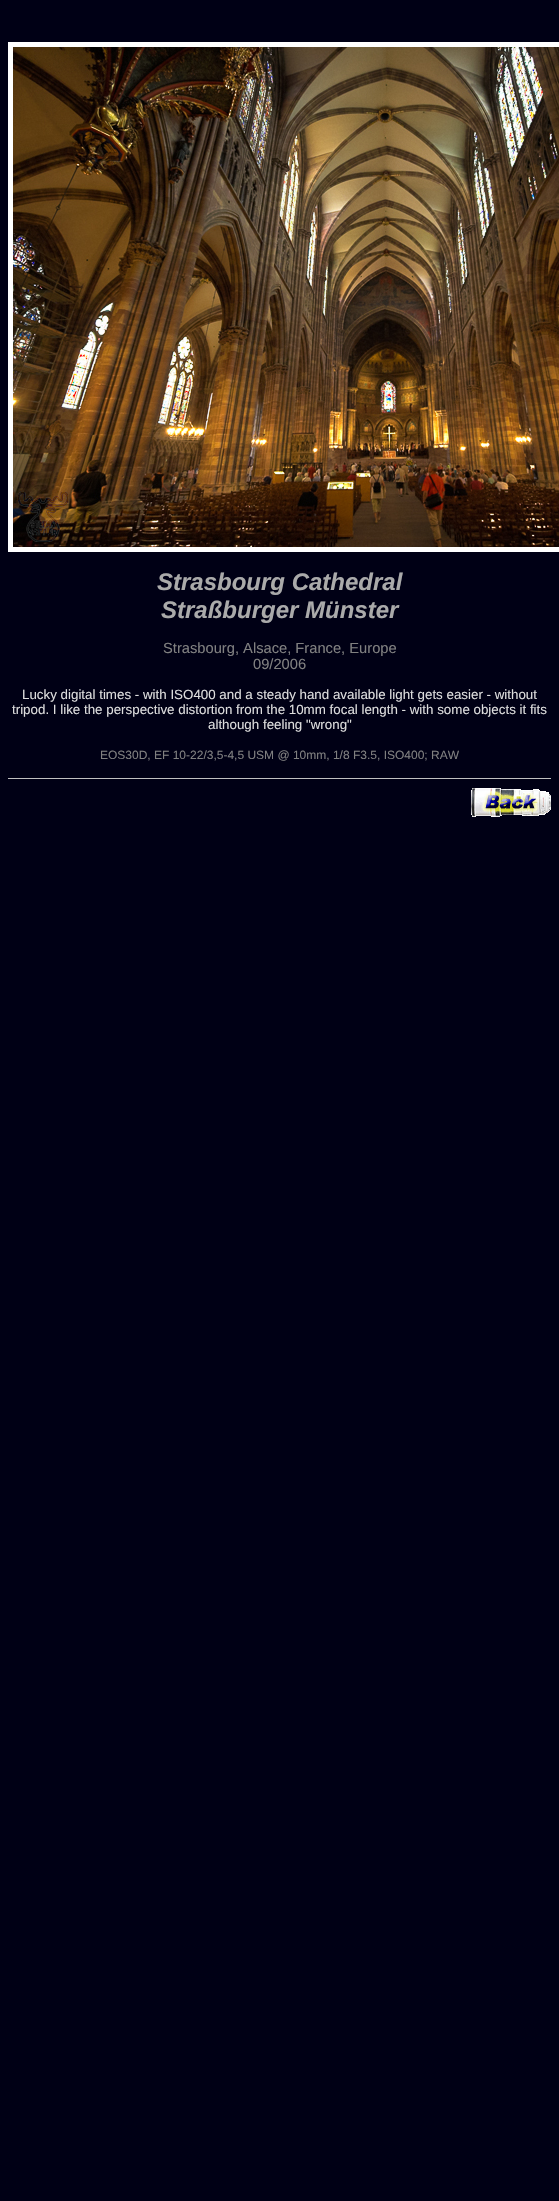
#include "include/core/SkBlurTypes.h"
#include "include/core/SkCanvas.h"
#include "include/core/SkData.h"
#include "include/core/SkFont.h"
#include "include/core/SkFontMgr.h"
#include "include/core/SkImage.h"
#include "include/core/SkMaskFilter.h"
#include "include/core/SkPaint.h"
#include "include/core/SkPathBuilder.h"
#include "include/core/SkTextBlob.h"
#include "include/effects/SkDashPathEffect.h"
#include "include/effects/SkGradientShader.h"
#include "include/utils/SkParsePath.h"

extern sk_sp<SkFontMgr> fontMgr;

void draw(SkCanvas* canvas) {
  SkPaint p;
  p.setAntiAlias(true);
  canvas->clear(SkColorSetRGB(0, 0, 21));
  p.setStyle(SkPaint::kStroke_Style);
  p.setStrokeWidth(5);
  p.setColor(SK_ColorWHITE);
  canvas->drawRect(SkRect::MakeLTRB(10.5f, 44.5f, 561.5f, 549.5f), p);
  canvas->drawImageRect(SkImages::DeferredFromEncodedData(SkData::MakeFromFileName("images/1.png")), SkRect::MakeLTRB(13, 47, 559, 547), SkSamplingOptions());
  p.setStyle(SkPaint::kFill_Style);
  p.setColor(SkColorSetRGB(192, 192, 192));
  canvas->drawRect(SkRect::MakeLTRB(8, 778, 551, 779), p);
  canvas->drawImageRect(SkImages::DeferredFromEncodedData(SkData::MakeFromFileName("images/2.png")), SkRect::MakeLTRB(471, 788, 551, 817), SkSamplingOptions());
  SkFont font1(fontMgr->matchFamilyStyle("Liberation Sans", SkFontStyle::BoldItalic()), 24);
  font1.setSubpixel(true);
  p.setColor(SkColorSetRGB(170, 170, 170));
  canvas->drawString("Strasbourg Cathedral", 157, 590, font1, p);
  canvas->drawString("Straßburger Münster", 161, 618, font1, p);
  SkFont font2(fontMgr->matchFamilyStyle("Liberation Sans", SkFontStyle::Normal()), 14.7f);
  font2.setSubpixel(true);
  p.setColor(SkColorSetRGB(128, 128, 128));
  canvas->drawString("Strasbourg, Alsace, France, Europe", 163, 653, font2, p);
  canvas->drawString("09/2006", 253, 669, font2, p);
  SkFont font3(fontMgr->matchFamilyStyle("Liberation Sans", SkFontStyle::Normal()), 13.35f);
  font3.setSubpixel(true);
  p.setColor(SkColorSetRGB(221, 221, 221));
  canvas->drawString("Lucky digital times - with ISO400 and a steady hand available light gets easier - without", 22, 699, font3, p);
  canvas->drawString("tripod. I like the perspective distortion from the 10mm focal length - with some objects it fits", 12, 714, font3, p);
  canvas->drawString("although feeling \"wrong\"", 208, 729, font3, p);
  SkFont font4(fontMgr->matchFamilyStyle("Liberation Sans", SkFontStyle::Normal()), 12);
  font4.setSubpixel(true);
  p.setColor(SkColorSetRGB(128, 128, 128));
  canvas->drawString("EOS30D, EF 10-22/3,5-4,5 USM @ 10mm, 1/8 F3.5, ISO400; RAW", 100, 759, font4, p);
}
